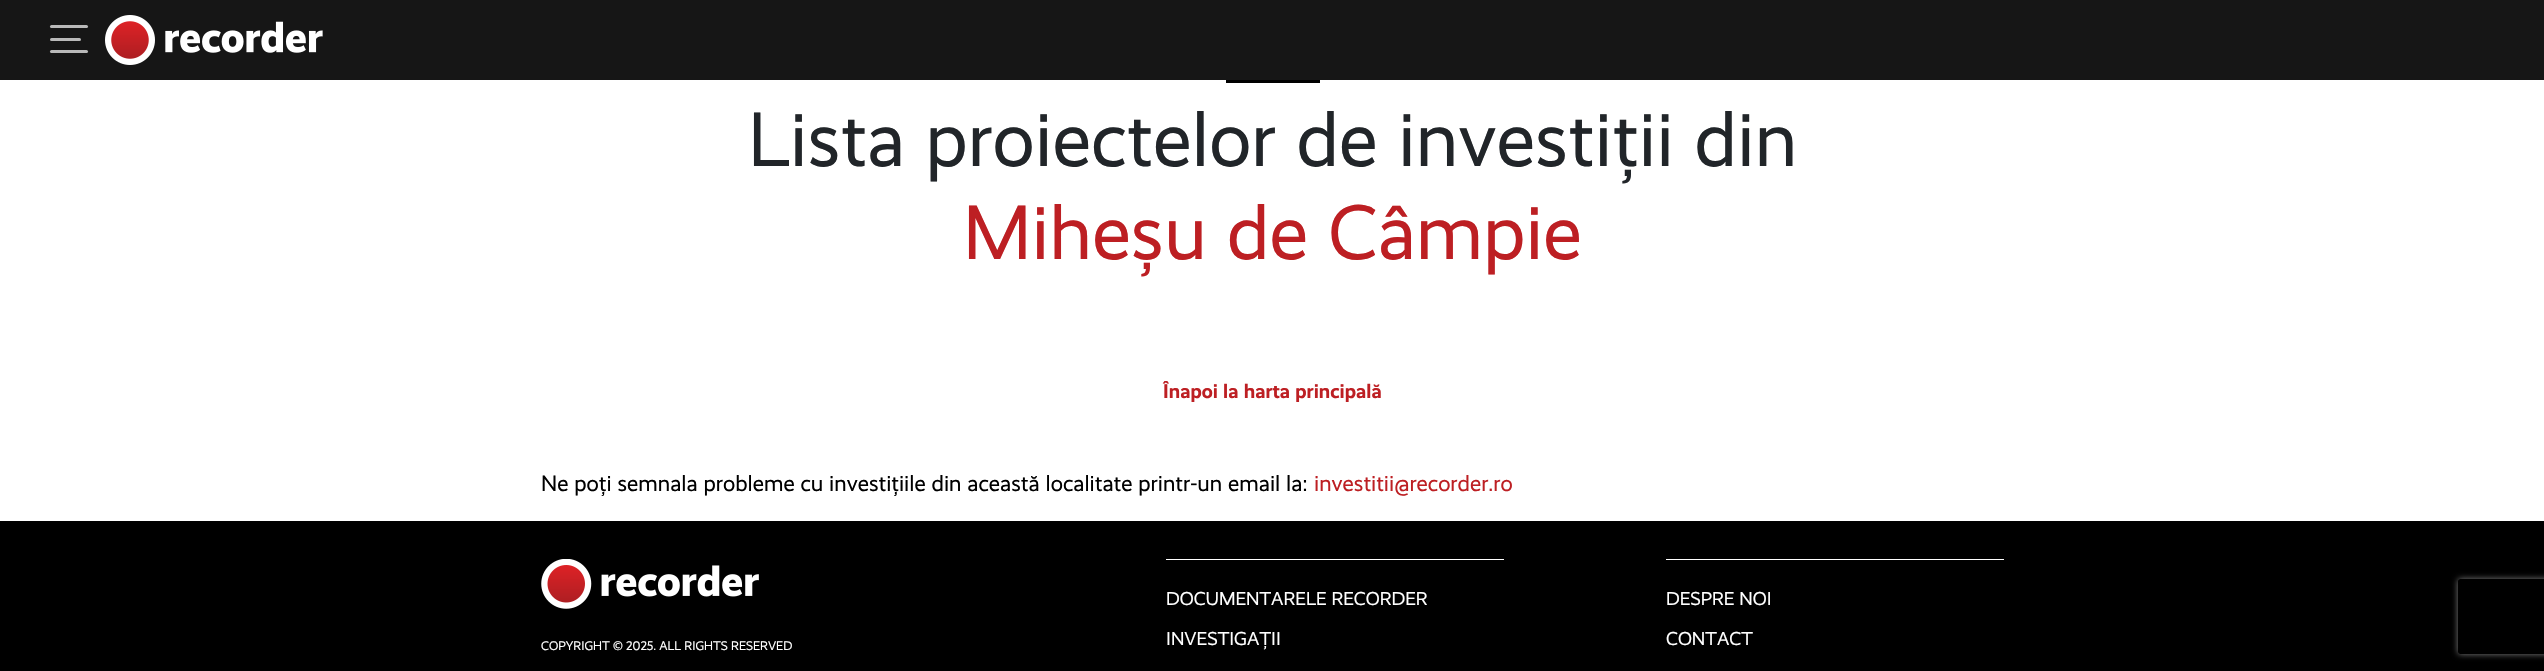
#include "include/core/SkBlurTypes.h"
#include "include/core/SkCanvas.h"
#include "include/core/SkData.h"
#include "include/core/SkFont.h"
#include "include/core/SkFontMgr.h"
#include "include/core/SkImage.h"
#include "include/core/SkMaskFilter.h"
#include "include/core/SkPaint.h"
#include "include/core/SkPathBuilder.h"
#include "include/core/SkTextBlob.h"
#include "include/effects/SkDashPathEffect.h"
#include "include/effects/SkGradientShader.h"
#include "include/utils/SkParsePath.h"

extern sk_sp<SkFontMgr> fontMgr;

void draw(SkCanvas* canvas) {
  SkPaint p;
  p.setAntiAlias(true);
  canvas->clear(SK_ColorWHITE);
  p.setColor(SkColorSetRGB(22, 22, 22));
  canvas->drawRect(SkRect::MakeLTRB(0, 0, 2544, 80), p);
  p.setColor(SkColorSetRGB(185, 185, 185));
  canvas->drawRoundRect(SkRect::MakeLTRB(50, 25, 88, 28), 1.5f, 1.5f, p);
  canvas->drawRoundRect(SkRect::MakeLTRB(50, 38, 81, 41), 1.5f, 1.5f, p);
  canvas->drawRoundRect(SkRect::MakeLTRB(50, 50, 88, 53), 1.5f, 1.5f, p);
  canvas->drawImageRect(SkImages::DeferredFromEncodedData(SkData::MakeFromFileName("images/1.png")), SkRect::MakeLTRB(105, 15, 323, 65), SkSamplingOptions());
  p.setColor(SK_ColorBLACK);
  canvas->drawRect(SkRect::MakeLTRB(1226, 80, 1320, 83), p);
  canvas->drawRect(SkRect::MakeLTRB(0, 521, 2544, 671), p);
  canvas->drawImageRect(SkImages::DeferredFromEncodedData(SkData::MakeFromFileName("images/2.png")), SkRect::MakeLTRB(541, 559, 759, 609), SkSamplingOptions());
  p.setColor(SK_ColorWHITE);
  canvas->drawRect(SkRect::MakeLTRB(1166, 559, 1504, 560), p);
  canvas->drawRect(SkRect::MakeLTRB(1666, 559, 2004, 560), p);
  canvas->save();
  canvas->clipPath(SkPathBuilder(SkPathFillType::kEvenOdd).moveTo(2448, 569).lineTo(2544, 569).lineTo(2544, 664).lineTo(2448, 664).close().moveTo(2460.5f, 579).lineTo(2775.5f, 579).cubicTo(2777, 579, 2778, 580, 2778, 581.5f).lineTo(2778, 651.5f).cubicTo(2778, 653, 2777, 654, 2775.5f, 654).lineTo(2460.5f, 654).cubicTo(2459, 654, 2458, 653, 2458, 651.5f).lineTo(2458, 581.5f).cubicTo(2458, 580, 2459, 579, 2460.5f, 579).close().detach(), true);
  p.setColor(SkColorSetRGB(128, 128, 128));
  p.setMaskFilter(SkMaskFilter::MakeBlur(kNormal_SkBlurStyle, 3));
  canvas->drawRoundRect(SkRect::MakeLTRB(2458, 579, 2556, 654), 2.5f, 2.5f, p);
  p.setMaskFilter(nullptr);
  canvas->restore();
  SkFont font1(fontMgr->matchFamilyStyle("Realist", SkFontStyle::Normal()), 77.5f);
  font1.setSubpixel(true);
  p.setColor(SkColorSetRGB(33, 37, 41));
  canvas->drawString("Lista proiectelor de investiții din", 748, 166, font1, p);
  p.setColor(SkColorSetRGB(189, 31, 35));
  canvas->drawString("Miheșu de Câmpie", 963, 259, font1, p);
  SkFont font2(fontMgr->matchFamilyStyle("Realist", SkFontStyle::Bold()), 20);
  font2.setSubpixel(true);
  canvas->drawString("Înapoi la harta principală", 1163, 398, font2, p);
  SkFont font3(fontMgr->matchFamilyStyle("Realist", SkFontStyle::Normal()), 22.5f);
  font3.setSubpixel(true);
  p.setColor(SK_ColorBLACK);
  canvas->drawString("Ne poți semnala probleme cu investițiile din această localitate printr-un email la:", 541, 491, font3, p);
  p.setColor(SkColorSetRGB(189, 31, 35));
  canvas->drawString("investitii@recorder.ro", 1314, 491, font3, p);
  SkFont font4(fontMgr->matchFamilyStyle("Realist", SkFontStyle::Normal()), 12.5f);
  font4.setSubpixel(true);
  p.setColor(SK_ColorWHITE);
  canvas->drawString("COPYRIGHT © 2025. ALL RIGHTS RESERVED", 541, 650, font4, p);
  SkFont font5(fontMgr->matchFamilyStyle("Realist", SkFontStyle::Normal()), 18.75f);
  font5.setSubpixel(true);
  canvas->drawString("DOCUMENTARELE RECORDER", 1166, 605, font5, p);
  canvas->drawString("INVESTIGAȚII", 1166, 645, font5, p);
  canvas->drawString("DESPRE NOI", 1666, 605, font5, p);
  canvas->drawString("CONTACT", 1666, 645, font5, p);
}
